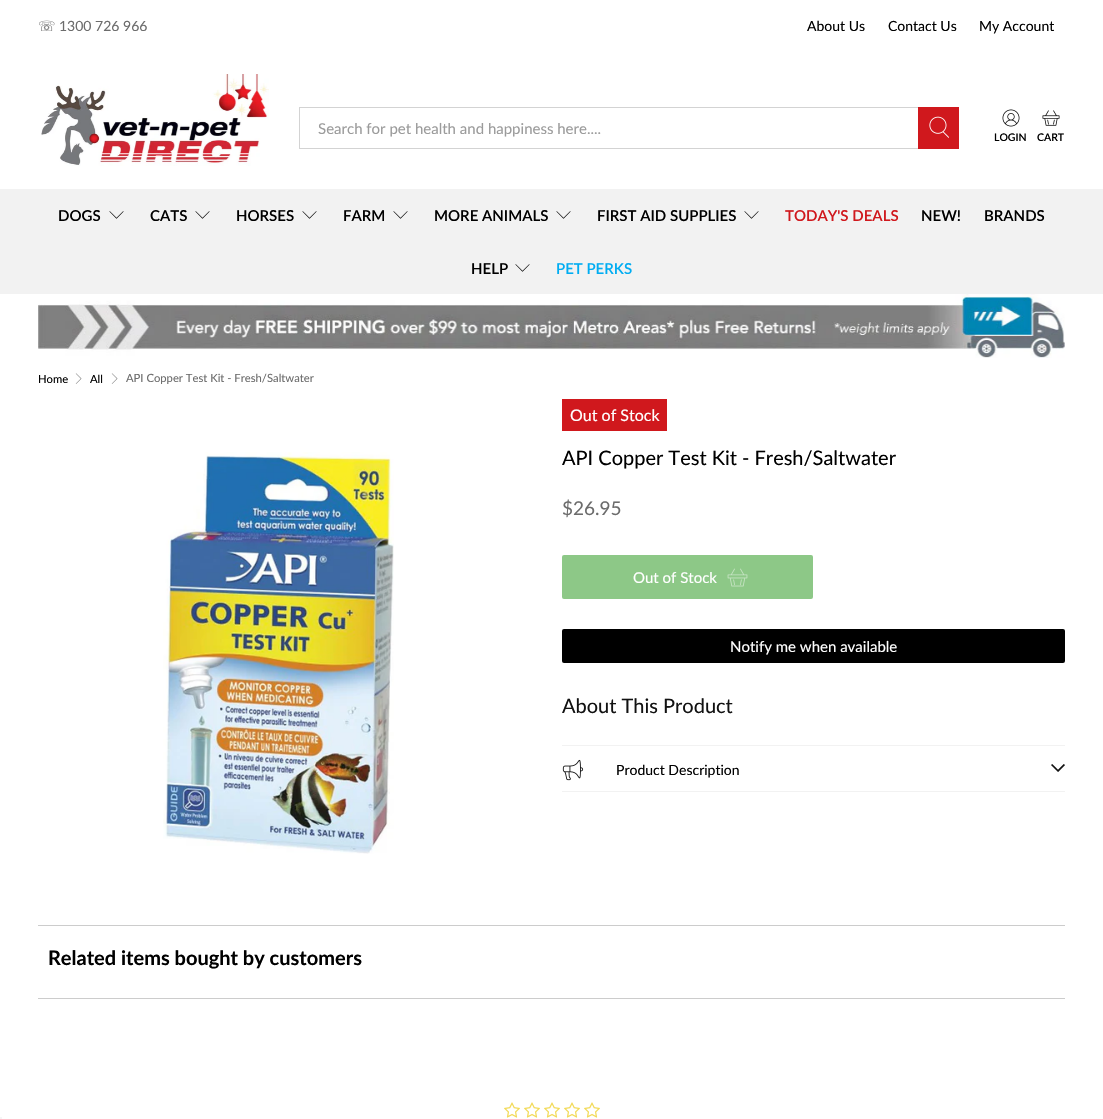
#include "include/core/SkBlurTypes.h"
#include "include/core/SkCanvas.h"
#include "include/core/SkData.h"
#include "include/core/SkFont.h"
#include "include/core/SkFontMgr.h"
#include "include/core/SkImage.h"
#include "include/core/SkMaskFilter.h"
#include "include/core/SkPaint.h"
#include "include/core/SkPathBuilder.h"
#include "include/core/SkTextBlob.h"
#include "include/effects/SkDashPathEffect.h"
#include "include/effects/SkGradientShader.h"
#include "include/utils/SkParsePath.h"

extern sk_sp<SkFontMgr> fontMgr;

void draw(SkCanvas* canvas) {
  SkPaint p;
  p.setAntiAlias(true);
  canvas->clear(SK_ColorWHITE);
  canvas->drawImageRect(SkImages::DeferredFromEncodedData(SkData::MakeFromFileName("images/1.png")), SkRect::MakeLTRB(41, 74, 269, 166), SkSamplingOptions());
  p.setStyle(SkPaint::kStroke_Style);
  p.setStrokeWidth(1);
  p.setColor(SkColorSetRGB(211, 211, 211));
  canvas->drawRect(SkRect::MakeLTRB(299.5f, 107.5f, 918.5f, 148.5f), p);
  p.setStyle(SkPaint::kFill_Style);
  p.setColor(SkColorSetRGB(208, 24, 29));
  canvas->drawRect(SkRect::MakeLTRB(918, 107, 959, 149), p);
  canvas->drawImageRect(SkImages::DeferredFromEncodedData(SkData::MakeFromFileName("images/2.png")), SkRect::MakeLTRB(929, 116, 949, 138), SkSamplingOptions());
  canvas->drawImageRect(SkImages::DeferredFromEncodedData(SkData::MakeFromFileName("images/3.png")), SkRect::MakeLTRB(1002, 109, 1020, 127), SkSamplingOptions());
  canvas->drawImageRect(SkImages::DeferredFromEncodedData(SkData::MakeFromFileName("images/4.png")), SkRect::MakeLTRB(1042, 110, 1060, 126), SkSamplingOptions());
  p.setColor(SkColorSetRGB(242, 242, 242));
  canvas->drawRect(SkRect::MakeLTRB(0, 189, 1103, 294), p);
  canvas->drawImageRect(SkImages::DeferredFromEncodedData(SkData::MakeFromFileName("images/5.png")), SkRect::MakeLTRB(109, 211, 124, 219), SkSamplingOptions());
  canvas->drawImageRect(SkImages::DeferredFromEncodedData(SkData::MakeFromFileName("images/5.png")), SkRect::MakeLTRB(195, 211, 210, 219), SkSamplingOptions());
  canvas->drawImageRect(SkImages::DeferredFromEncodedData(SkData::MakeFromFileName("images/5.png")), SkRect::MakeLTRB(302, 211, 317, 219), SkSamplingOptions());
  canvas->drawImageRect(SkImages::DeferredFromEncodedData(SkData::MakeFromFileName("images/5.png")), SkRect::MakeLTRB(393, 211, 408, 219), SkSamplingOptions());
  canvas->drawImageRect(SkImages::DeferredFromEncodedData(SkData::MakeFromFileName("images/5.png")), SkRect::MakeLTRB(556, 211, 571, 219), SkSamplingOptions());
  canvas->drawImageRect(SkImages::DeferredFromEncodedData(SkData::MakeFromFileName("images/5.png")), SkRect::MakeLTRB(744, 211, 759, 219), SkSamplingOptions());
  canvas->drawImageRect(SkImages::DeferredFromEncodedData(SkData::MakeFromFileName("images/5.png")), SkRect::MakeLTRB(515, 264, 530, 272), SkSamplingOptions());
  canvas->drawImageRect(SkImages::DeferredFromEncodedData(SkData::MakeFromFileName("images/6.png")), SkRect::MakeLTRB(38, 294, 1065, 358), SkSamplingOptions());
  canvas->drawImageRect(SkImages::DeferredFromEncodedData(SkData::MakeFromFileName("images/7.png")), SkRect::MakeLTRB(75, 373, 82, 384), SkSamplingOptions());
  canvas->drawImageRect(SkImages::DeferredFromEncodedData(SkData::MakeFromFileName("images/7.png")), SkRect::MakeLTRB(111, 373, 118, 384), SkSamplingOptions());
  canvas->drawImageRect(SkImages::DeferredFromEncodedData(SkData::MakeFromFileName("images/8.png")), SkRect::MakeLTRB(163, 452, 394, 854), SkSamplingOptions());
  p.setColor(SkColorSetRGB(208, 24, 29));
  canvas->drawRect(SkRect::MakeLTRB(562, 399, 667, 431), p);
  p.setColor(SkColorSetRGB(141, 200, 135));
  canvas->drawRoundRect(SkRect::MakeLTRB(562, 555, 813, 599), 2, 2, p);
  canvas->drawImageRect(SkImages::DeferredFromEncodedData(SkData::MakeFromFileName("images/9.png")), SkRect::MakeLTRB(727, 568, 748, 587), SkSamplingOptions());
  p.setColor(SK_ColorBLACK);
  canvas->drawRoundRect(SkRect::MakeLTRB(562, 629, 1065, 663), 2, 2, p);
  p.setColor(SkColorSetRGB(242, 242, 242));
  canvas->drawRect(SkRect::MakeLTRB(562, 745, 1065, 746), p);
  canvas->drawRect(SkRect::MakeLTRB(562, 791, 1065, 792), p);
  canvas->drawImageRect(SkImages::DeferredFromEncodedData(SkData::MakeFromFileName("images/10.png")), SkRect::MakeLTRB(562, 759, 584, 781), SkSamplingOptions());
  canvas->drawImageRect(SkImages::DeferredFromEncodedData(SkData::MakeFromFileName("images/11.png")), SkRect::MakeLTRB(1051, 764, 1065, 772), SkSamplingOptions());
  p.setColor(SkColorSetRGB(204, 204, 204));
  canvas->drawRect(SkRect::MakeLTRB(38, 925, 1065, 926), p);
  canvas->drawRect(SkRect::MakeLTRB(38, 998, 1065, 999), p);
  canvas->drawImageRect(SkImages::DeferredFromEncodedData(SkData::MakeFromFileName("images/12.png")), SkRect::MakeLTRB(504, 1102, 520, 1118), SkSamplingOptions());
  canvas->drawImageRect(SkImages::DeferredFromEncodedData(SkData::MakeFromFileName("images/12.png")), SkRect::MakeLTRB(524, 1102, 540, 1118), SkSamplingOptions());
  canvas->drawImageRect(SkImages::DeferredFromEncodedData(SkData::MakeFromFileName("images/12.png")), SkRect::MakeLTRB(544, 1102, 560, 1118), SkSamplingOptions());
  canvas->drawImageRect(SkImages::DeferredFromEncodedData(SkData::MakeFromFileName("images/12.png")), SkRect::MakeLTRB(564, 1102, 580, 1118), SkSamplingOptions());
  canvas->drawImageRect(SkImages::DeferredFromEncodedData(SkData::MakeFromFileName("images/12.png")), SkRect::MakeLTRB(584, 1102, 600, 1118), SkSamplingOptions());
  p.setColor(SkColorSetRGB(245, 245, 245));
  canvas->drawRect(SkRect::MakeLTRB(0, 1117, 2, 1119), p);
  SkFont font1(fontMgr->matchFamilyStyle("DejaVu Sans", SkFontStyle::Normal()), 14);
  font1.setSubpixel(true);
  p.setColor(SkColorSetRGB(108, 108, 108));
  canvas->drawString("☏", 38, 31, font1, p);
  SkFont font2(fontMgr->matchFamilyStyle("Lato", SkFontStyle::Normal()), 14);
  font2.setSubpixel(true);
  canvas->drawString("1300 726 966", 59, 31, font2, p);
  p.setColor(SK_ColorBLACK);
  canvas->drawString("About Us", 807, 31, font2, p);
  canvas->drawString("Contact Us", 888, 31, font2, p);
  canvas->drawString("My Account", 979, 31, font2, p);
  SkFont font3(fontMgr->matchFamilyStyle("Lato", SkFontStyle::Normal()), 15);
  font3.setSubpixel(true);
  p.setColor(SkColorSetRGB(155, 155, 155));
  canvas->drawString("Search for pet health and happiness here....", 318, 134, font3, p);
  SkFont font4(fontMgr->matchFamilyStyle("Lato", SkFontStyle(600, SkFontStyle::kNormal_Width, SkFontStyle::kUpright_Slant)), 10.5f);
  font4.setSubpixel(true);
  p.setColor(SK_ColorBLACK);
  canvas->drawString("LOGIN", 994, 141, font4, p);
  canvas->drawString("CART", 1037, 141, font4, p);
  SkFont font5(fontMgr->matchFamilyStyle("Lato", SkFontStyle(600, SkFontStyle::kNormal_Width, SkFontStyle::kUpright_Slant)), 15);
  font5.setSubpixel(true);
  canvas->drawString("DOGS", 58, 221, font5, p);
  canvas->drawString("CATS", 150, 221, font5, p);
  canvas->drawString("HORSES", 236, 221, font5, p);
  canvas->drawString("FARM", 343, 221, font5, p);
  canvas->drawString("MORE ANIMALS", 434, 221, font5, p);
  canvas->drawString("FIRST AID SUPPLIES", 597, 221, font5, p);
  p.setColor(SkColorSetRGB(208, 24, 29));
  canvas->drawString("TODAY'S DEALS", 785, 221, font5, p);
  p.setColor(SK_ColorBLACK);
  canvas->drawString("NEW!", 921, 221, font5, p);
  canvas->drawString("BRANDS", 984, 221, font5, p);
  canvas->drawString("HELP", 471, 274, font5, p);
  p.setColor(SkColorSetRGB(0, 173, 242));
  canvas->drawString("PET PERKS", 556, 274, font5, p);
  SkFont font6(fontMgr->matchFamilyStyle("Lato", SkFontStyle::Normal()), 11.25f);
  font6.setSubpixel(true);
  p.setColor(SK_ColorBLACK);
  canvas->drawString("Home", 38, 383, font6, p);
  canvas->drawString("All", 90, 383, font6, p);
  p.setColor(SkColorSetRGB(108, 108, 108));
  canvas->drawString("API Copper Test Kit - Fresh/Saltwater", 126, 382, font6, p);
  SkFont font7(fontMgr->matchFamilyStyle("Lato", SkFontStyle::Normal()), 16);
  font7.setSubpixel(true);
  p.setColor(SK_ColorWHITE);
  canvas->drawString("Out of Stock", 570, 421, font7, p);
  SkFont font8(fontMgr->matchFamilyStyle("Lato", SkFontStyle::Normal()), 20);
  font8.setSubpixel(true);
  p.setColor(SK_ColorBLACK);
  canvas->drawString("API Copper Test Kit - Fresh/Saltwater", 562, 465, font8, p);
  SkFont font9(fontMgr->matchFamilyStyle("Lato", SkFontStyle::Normal()), 19);
  font9.setSubpixel(true);
  p.setColor(SkColorSetRGB(108, 108, 108));
  canvas->drawString("$26.95", 562, 515, font9, p);
  p.setColor(SK_ColorWHITE);
  canvas->drawString("Out of Stock", 633, 583, font3, p);
  canvas->drawString("Notify me when available", 730, 652, font3, p);
  p.setColor(SkColorSetRGB(18, 18, 18));
  canvas->drawString("About This Product", 562, 713, font8, p);
  p.setColor(SK_ColorBLACK);
  canvas->drawString("Product Description", 616, 775, font2, p);
  SkFont font10(fontMgr->matchFamilyStyle("Lato", SkFontStyle::Bold()), 20);
  font10.setSubpixel(true);
  canvas->drawString("Related items bought by customers", 48, 965, font10, p);
}
